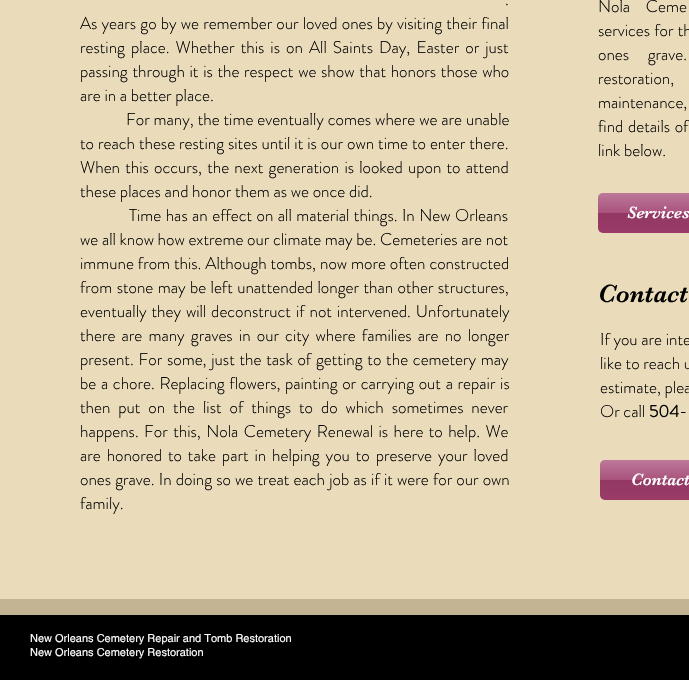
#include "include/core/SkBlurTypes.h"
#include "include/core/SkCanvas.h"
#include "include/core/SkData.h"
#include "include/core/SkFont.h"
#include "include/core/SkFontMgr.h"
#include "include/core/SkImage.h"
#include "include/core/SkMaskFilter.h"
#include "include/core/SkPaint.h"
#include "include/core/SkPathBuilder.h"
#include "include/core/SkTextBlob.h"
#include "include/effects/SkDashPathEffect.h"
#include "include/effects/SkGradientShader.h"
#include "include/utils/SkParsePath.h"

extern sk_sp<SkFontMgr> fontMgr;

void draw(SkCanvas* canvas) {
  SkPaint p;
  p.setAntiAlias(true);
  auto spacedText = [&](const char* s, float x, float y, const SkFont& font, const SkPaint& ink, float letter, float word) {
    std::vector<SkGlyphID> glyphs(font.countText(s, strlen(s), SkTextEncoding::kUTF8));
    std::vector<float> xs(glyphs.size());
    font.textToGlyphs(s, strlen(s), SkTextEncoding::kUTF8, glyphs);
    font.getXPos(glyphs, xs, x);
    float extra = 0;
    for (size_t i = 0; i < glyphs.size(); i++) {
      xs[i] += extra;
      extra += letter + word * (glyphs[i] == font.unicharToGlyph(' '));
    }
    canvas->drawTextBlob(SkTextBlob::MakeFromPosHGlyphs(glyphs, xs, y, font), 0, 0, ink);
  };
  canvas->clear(SkColorSetRGB(195, 180, 147));
  p.setColor(SkColorSetRGB(234, 220, 187));
  canvas->drawRect(SkRect::MakeLTRB(0, 0, 689, 599), p);
  p.setColor(SkColorSetRGB(158, 60, 107));
  canvas->drawRoundRect(SkRect::MakeLTRB(598, 193, 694, 233), 5, 5, p);
  canvas->drawImageRect(SkImages::DeferredFromEncodedData(SkData::MakeFromFileName("images/1.png")), SkRect::MakeLTRB(598, 193, 689, 233), SkSamplingOptions());
  canvas->drawRoundRect(SkRect::MakeLTRB(600, 460, 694, 500), 5, 5, p);
  canvas->drawImageRect(SkImages::DeferredFromEncodedData(SkData::MakeFromFileName("images/2.png")), SkRect::MakeLTRB(600, 460, 689, 500), SkSamplingOptions());
  p.setColor(SK_ColorBLACK);
  canvas->drawRect(SkRect::MakeLTRB(0, 615, 689, 680), p);
  SkFont font1(fontMgr->matchFamilyStyle("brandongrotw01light", SkFontStyle(300, SkFontStyle::kNormal_Width, SkFontStyle::kUpright_Slant)), 17);
  font1.setSubpixel(true);
  spacedText(".", 505, 5, font1, p, 0, 2.25f);
  spacedText("As years go by we remember our loved ones by visiting their final", 80, 29, font1, p, 0, 0.5f);
  spacedText("resting place. Whether this is on All Saints Day, Easter or just", 80, 53, font1, p, 0, 2.4f);
  spacedText("passing through it is the respect we show that honors those who", 80, 77, font1, p, 0, 1);
  canvas->drawString("are in a better place.", 80, 101, font1, p);
  spacedText("For many, the time eventually comes where we are unable", 126, 125, font1, p, 0, 0.25f);
  spacedText("to reach these resting sites until it is our own time to enter there.", 80, 149, font1, p, 0, 0.3f);
  spacedText("When this occurs, the next generation is looked upon to attend", 80, 173, font1, p, 0, 1.5f);
  canvas->drawString("these places and honor them as we once did.", 80, 197, font1, p);
  spacedText("Time has an effect on all material things. In New Orleans", 129, 221, font1, p, 0, 0.75f);
  canvas->drawString("we all know how extreme our climate may be. Cemeteries are not", 80, 245, font1, p);
  spacedText("immune from this. Although tombs, now more often constructed", 80, 269, font1, p, 0, 0.25f);
  spacedText("from stone may be left unattended longer than other structures,", 80, 293, font1, p, 0, 0.75f);
  spacedText("eventually they will deconstruct if not intervened. Unfortunately", 80, 317, font1, p, 0, 1.25f);
  spacedText("there are many graves in our city where families are no longer", 80, 341, font1, p, 0, 2.5f);
  spacedText("present. For some, just the task of getting to the cemetery may", 80, 365, font1, p, 0, 1.1f);
  spacedText("be a chore. Replacing flowers, painting or carrying out a repair is", 80, 389, font1, p, 0, 1);
  spacedText("then put on the list of things to do which sometimes never", 80, 413, font1, p, 0, 4.25f);
  spacedText("happens. For this, Nola Cemetery Renewal is here to help. We", 80, 437, font1, p, 0, 1.75f);
  spacedText("are honored to take part in helping you to preserve your loved", 80, 461, font1, p, 0, 2.25f);
  spacedText("ones grave. In doing so we treat each job as if it were for our own", 80, 485, font1, p, 0, 0.5f);
  canvas->drawString("family.", 80, 509, font1, p);
  spacedText("Nola Ceme", 598, 12, font1, p, 0, 12);
  spacedText("services for th", 598, 36, font1, p, 0, 0.5f);
  spacedText("ones grave.", 598, 60, font1, p, 0, 15);
  spacedText("restoration,", 598, 84, font1, p, 0, 21);
  spacedText("maintenance,", 598, 108, font1, p, 0, 4);
  spacedText("find details of", 598, 132, font1, p, 0, 1);
  canvas->drawString("link below.", 598, 156, font1, p);
  SkFont font2(fontMgr->matchFamilyStyle("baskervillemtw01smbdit", SkFontStyle::Normal()), 17);
  font2.setSubpixel(true);
  p.setColor(SK_ColorWHITE);
  canvas->drawString("Services", 627, 218, font2, p);
  SkFont font3(fontMgr->matchFamilyStyle("baskervillemtw01smbdit", SkFontStyle::Normal()), 26);
  font3.setSubpixel(true);
  p.setColor(SK_ColorBLACK);
  canvas->drawString("Contact", 598, 302, font3, p);
  canvas->drawString("If you are inte", 600, 345, font1, p);
  canvas->drawString("like to reach u", 600, 369, font1, p);
  canvas->drawString("estimate, plea", 600, 393, font1, p);
  canvas->drawString("Or call", 600, 417, font1, p);
  SkFont font4(fontMgr->matchFamilyStyle("brandongrotw01light", SkFontStyle::Bold()), 17);
  font4.setSubpixel(true);
  canvas->drawString("504-", 649, 417, font4, p);
  p.setColor(SK_ColorWHITE);
  canvas->drawString("Contact", 631, 485, font2, p);
  SkFont font5(fontMgr->matchFamilyStyle("helvetica", SkFontStyle::Normal()), 11);
  font5.setSubpixel(true);
  canvas->drawString("New Orleans Cemetery Repair and Tomb Restoration", 30, 642, font5, p);
  canvas->drawString("New Orleans Cemetery Restoration", 30, 656, font5, p);
}
